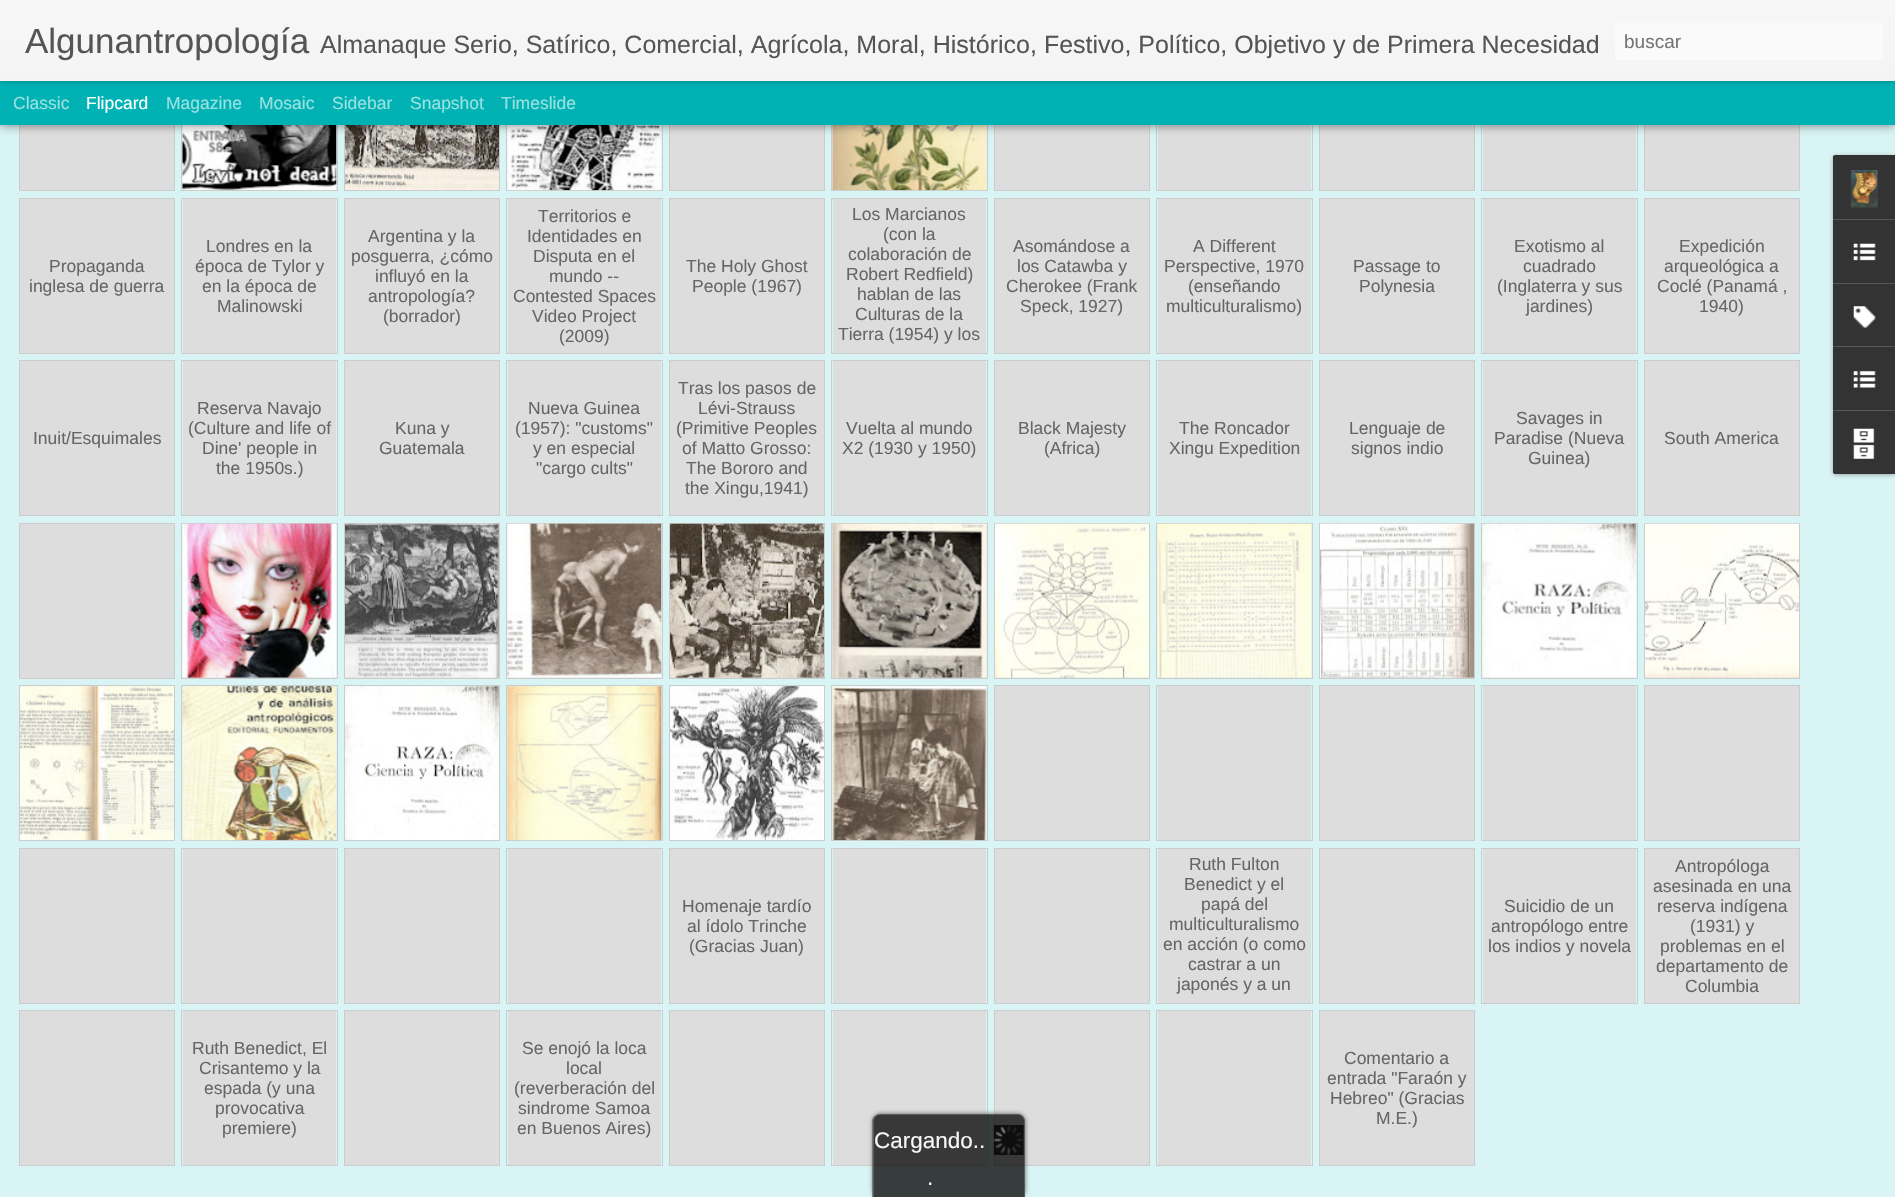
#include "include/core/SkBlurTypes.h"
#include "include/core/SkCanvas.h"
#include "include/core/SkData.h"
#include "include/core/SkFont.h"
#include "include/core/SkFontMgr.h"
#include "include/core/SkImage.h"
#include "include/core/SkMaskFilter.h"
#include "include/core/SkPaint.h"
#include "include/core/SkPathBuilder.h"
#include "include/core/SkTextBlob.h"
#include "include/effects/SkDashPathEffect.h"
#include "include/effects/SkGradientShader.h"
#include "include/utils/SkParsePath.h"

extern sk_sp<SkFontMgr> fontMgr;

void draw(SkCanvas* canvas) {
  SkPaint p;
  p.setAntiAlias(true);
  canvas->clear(SkColorSetRGB(217, 244, 244));
  p.setStyle(SkPaint::kStroke_Style);
  p.setStrokeWidth(1);
  p.setColor(SkColorSetRGB(204, 204, 204));
  canvas->drawRect(SkRect::MakeLTRB(19.5f, 35.5f, 174.5f, 190.5f), p);
  p.setStyle(SkPaint::kFill_Style);
  p.setColor(SkColorSetRGB(221, 221, 221));
  canvas->drawRect(SkRect::MakeLTRB(20, 125, 174, 190), p);
  p.setStyle(SkPaint::kStroke_Style);
  p.setColor(SkColorSetRGB(204, 204, 204));
  canvas->drawRect(SkRect::MakeLTRB(181.5f, 35.5f, 337.5f, 190.5f), p);
  canvas->drawImageRect(SkImages::DeferredFromEncodedData(SkData::MakeFromFileName("images/1.png")), SkRect::MakeLTRB(182, 125, 337, 190), SkSamplingOptions());
  canvas->drawRect(SkRect::MakeLTRB(344.5f, 35.5f, 499.5f, 190.5f), p);
  canvas->drawImageRect(SkImages::DeferredFromEncodedData(SkData::MakeFromFileName("images/2.png")), SkRect::MakeLTRB(345, 125, 499, 190), SkSamplingOptions());
  canvas->drawRect(SkRect::MakeLTRB(506.5f, 35.5f, 662.5f, 190.5f), p);
  canvas->drawImageRect(SkImages::DeferredFromEncodedData(SkData::MakeFromFileName("images/3.png")), SkRect::MakeLTRB(507, 125, 662, 191), SkSamplingOptions());
  canvas->drawRect(SkRect::MakeLTRB(669.5f, 35.5f, 824.5f, 190.5f), p);
  p.setStyle(SkPaint::kFill_Style);
  p.setColor(SkColorSetRGB(221, 221, 221));
  canvas->drawRect(SkRect::MakeLTRB(670, 125, 824, 190), p);
  p.setStyle(SkPaint::kStroke_Style);
  p.setColor(SkColorSetRGB(204, 204, 204));
  canvas->drawRect(SkRect::MakeLTRB(831.5f, 35.5f, 987.5f, 190.5f), p);
  canvas->drawImageRect(SkImages::DeferredFromEncodedData(SkData::MakeFromFileName("images/4.png")), SkRect::MakeLTRB(832, 125, 987, 191), SkSamplingOptions());
  canvas->drawRect(SkRect::MakeLTRB(994.5f, 35.5f, 1149.5f, 190.5f), p);
  p.setStyle(SkPaint::kFill_Style);
  p.setColor(SkColorSetRGB(221, 221, 221));
  canvas->drawRect(SkRect::MakeLTRB(995, 125, 1149, 190), p);
  p.setStyle(SkPaint::kStroke_Style);
  p.setColor(SkColorSetRGB(204, 204, 204));
  canvas->drawRect(SkRect::MakeLTRB(1156.5f, 35.5f, 1312.5f, 190.5f), p);
  p.setStyle(SkPaint::kFill_Style);
  p.setColor(SkColorSetRGB(221, 221, 221));
  canvas->drawRect(SkRect::MakeLTRB(1158, 125, 1311, 190), p);
  p.setStyle(SkPaint::kStroke_Style);
  p.setColor(SkColorSetRGB(204, 204, 204));
  canvas->drawRect(SkRect::MakeLTRB(1319.5f, 35.5f, 1474.5f, 190.5f), p);
  p.setStyle(SkPaint::kFill_Style);
  p.setColor(SkColorSetRGB(221, 221, 221));
  canvas->drawRect(SkRect::MakeLTRB(1320, 125, 1474, 190), p);
  p.setStyle(SkPaint::kStroke_Style);
  p.setColor(SkColorSetRGB(204, 204, 204));
  canvas->drawRect(SkRect::MakeLTRB(1481.5f, 35.5f, 1637.5f, 190.5f), p);
  p.setStyle(SkPaint::kFill_Style);
  p.setColor(SkColorSetRGB(221, 221, 221));
  canvas->drawRect(SkRect::MakeLTRB(1483, 125, 1636, 190), p);
  p.setStyle(SkPaint::kStroke_Style);
  p.setColor(SkColorSetRGB(204, 204, 204));
  canvas->drawRect(SkRect::MakeLTRB(1644.5f, 35.5f, 1799.5f, 190.5f), p);
  p.setStyle(SkPaint::kFill_Style);
  p.setColor(SkColorSetRGB(221, 221, 221));
  canvas->drawRect(SkRect::MakeLTRB(1645, 125, 1799, 190), p);
  p.setColor(SkColorSetARGB(128, 0, 0, 0));
  p.setMaskFilter(SkMaskFilter::MakeBlur(kNormal_SkBlurStyle, 5));
  canvas->drawRect(SkRect::MakeLTRB(0, 81, 1895, 125), p);
  p.setMaskFilter(nullptr);
  p.setColor(SkColorSetRGB(0, 178, 180));
  canvas->drawRect(SkRect::MakeLTRB(0, 81, 1895, 125), p);
  p.setColor(SkColorSetARGB(77, 0, 0, 0));
  p.setMaskFilter(SkMaskFilter::MakeBlur(kNormal_SkBlurStyle, 3));
  canvas->drawRect(SkRect::MakeLTRB(0, 0, 1895, 81), p);
  p.setMaskFilter(nullptr);
  {
    const SkColor colors[] = {SkColorSetRGB(247, 247, 247), SkColorSetRGB(244, 244, 244)};
    const float stops[] = {0, 1};
    const SkPoint ends[] = {{0, 0}, {0, 81}};
    p.setShader(SkGradientShader::MakeLinear(ends, colors, stops, 2, SkTileMode::kClamp));
    p.setAlpha(255);
  }
  canvas->drawRect(SkRect::MakeLTRB(0, 0, 1895, 81), p);
  p.setShader(nullptr);
  p.setColor(SkColorSetRGB(250, 250, 250));
  canvas->drawRoundRect(SkRect::MakeLTRB(1615, 23, 1883, 60), 4, 4, p);
  p.setStyle(SkPaint::kStroke_Style);
  p.setColor(SkColorSetRGB(204, 204, 204));
  canvas->drawRect(SkRect::MakeLTRB(19.5f, 198.5f, 174.5f, 353.5f), p);
  p.setStyle(SkPaint::kFill_Style);
  p.setColor(SkColorSetRGB(221, 221, 221));
  canvas->drawRect(SkRect::MakeLTRB(20, 199, 174, 353), p);
  p.setStyle(SkPaint::kStroke_Style);
  p.setColor(SkColorSetRGB(204, 204, 204));
  canvas->drawRect(SkRect::MakeLTRB(181.5f, 198.5f, 337.5f, 353.5f), p);
  p.setStyle(SkPaint::kFill_Style);
  p.setColor(SkColorSetRGB(221, 221, 221));
  canvas->drawRect(SkRect::MakeLTRB(183, 199, 336, 353), p);
  p.setStyle(SkPaint::kStroke_Style);
  p.setColor(SkColorSetRGB(204, 204, 204));
  canvas->drawRect(SkRect::MakeLTRB(344.5f, 198.5f, 499.5f, 353.5f), p);
  p.setStyle(SkPaint::kFill_Style);
  p.setColor(SkColorSetRGB(221, 221, 221));
  canvas->drawRect(SkRect::MakeLTRB(345, 199, 499, 353), p);
  p.setStyle(SkPaint::kStroke_Style);
  p.setColor(SkColorSetRGB(204, 204, 204));
  canvas->drawRect(SkRect::MakeLTRB(506.5f, 198.5f, 662.5f, 353.5f), p);
  p.setStyle(SkPaint::kFill_Style);
  p.setColor(SkColorSetRGB(221, 221, 221));
  canvas->drawRect(SkRect::MakeLTRB(508, 199, 661, 353), p);
  p.setStyle(SkPaint::kStroke_Style);
  p.setColor(SkColorSetRGB(204, 204, 204));
  canvas->drawRect(SkRect::MakeLTRB(669.5f, 198.5f, 824.5f, 353.5f), p);
  p.setStyle(SkPaint::kFill_Style);
  p.setColor(SkColorSetRGB(221, 221, 221));
  canvas->drawRect(SkRect::MakeLTRB(670, 199, 824, 353), p);
  p.setStyle(SkPaint::kStroke_Style);
  p.setColor(SkColorSetRGB(204, 204, 204));
  canvas->drawRect(SkRect::MakeLTRB(831.5f, 198.5f, 987.5f, 353.5f), p);
  p.setStyle(SkPaint::kFill_Style);
  p.setColor(SkColorSetRGB(221, 221, 221));
  canvas->drawRect(SkRect::MakeLTRB(833, 199, 986, 353), p);
  p.setStyle(SkPaint::kStroke_Style);
  p.setColor(SkColorSetRGB(204, 204, 204));
  canvas->drawRect(SkRect::MakeLTRB(994.5f, 198.5f, 1149.5f, 353.5f), p);
  p.setStyle(SkPaint::kFill_Style);
  p.setColor(SkColorSetRGB(221, 221, 221));
  canvas->drawRect(SkRect::MakeLTRB(995, 199, 1149, 353), p);
  p.setStyle(SkPaint::kStroke_Style);
  p.setColor(SkColorSetRGB(204, 204, 204));
  canvas->drawRect(SkRect::MakeLTRB(1156.5f, 198.5f, 1312.5f, 353.5f), p);
  p.setStyle(SkPaint::kFill_Style);
  p.setColor(SkColorSetRGB(221, 221, 221));
  canvas->drawRect(SkRect::MakeLTRB(1158, 199, 1311, 353), p);
  p.setStyle(SkPaint::kStroke_Style);
  p.setColor(SkColorSetRGB(204, 204, 204));
  canvas->drawRect(SkRect::MakeLTRB(1319.5f, 198.5f, 1474.5f, 353.5f), p);
  p.setStyle(SkPaint::kFill_Style);
  p.setColor(SkColorSetRGB(221, 221, 221));
  canvas->drawRect(SkRect::MakeLTRB(1320, 199, 1474, 353), p);
  p.setStyle(SkPaint::kStroke_Style);
  p.setColor(SkColorSetRGB(204, 204, 204));
  canvas->drawRect(SkRect::MakeLTRB(1481.5f, 198.5f, 1637.5f, 353.5f), p);
  p.setStyle(SkPaint::kFill_Style);
  p.setColor(SkColorSetRGB(221, 221, 221));
  canvas->drawRect(SkRect::MakeLTRB(1483, 199, 1636, 353), p);
  p.setStyle(SkPaint::kStroke_Style);
  p.setColor(SkColorSetRGB(204, 204, 204));
  canvas->drawRect(SkRect::MakeLTRB(1644.5f, 198.5f, 1799.5f, 353.5f), p);
  p.setStyle(SkPaint::kFill_Style);
  p.setColor(SkColorSetRGB(221, 221, 221));
  canvas->drawRect(SkRect::MakeLTRB(1645, 199, 1799, 353), p);
  p.setStyle(SkPaint::kStroke_Style);
  p.setColor(SkColorSetRGB(204, 204, 204));
  canvas->drawRect(SkRect::MakeLTRB(19.5f, 360.5f, 174.5f, 515.5f), p);
  p.setStyle(SkPaint::kFill_Style);
  p.setColor(SkColorSetRGB(221, 221, 221));
  canvas->drawRect(SkRect::MakeLTRB(20, 361, 174, 515), p);
  p.setStyle(SkPaint::kStroke_Style);
  p.setColor(SkColorSetRGB(204, 204, 204));
  canvas->drawRect(SkRect::MakeLTRB(181.5f, 360.5f, 337.5f, 515.5f), p);
  p.setStyle(SkPaint::kFill_Style);
  p.setColor(SkColorSetRGB(221, 221, 221));
  canvas->drawRect(SkRect::MakeLTRB(183, 361, 336, 515), p);
  p.setStyle(SkPaint::kStroke_Style);
  p.setColor(SkColorSetRGB(204, 204, 204));
  canvas->drawRect(SkRect::MakeLTRB(344.5f, 360.5f, 499.5f, 515.5f), p);
  p.setStyle(SkPaint::kFill_Style);
  p.setColor(SkColorSetRGB(221, 221, 221));
  canvas->drawRect(SkRect::MakeLTRB(345, 361, 499, 515), p);
  p.setStyle(SkPaint::kStroke_Style);
  p.setColor(SkColorSetRGB(204, 204, 204));
  canvas->drawRect(SkRect::MakeLTRB(506.5f, 360.5f, 662.5f, 515.5f), p);
  p.setStyle(SkPaint::kFill_Style);
  p.setColor(SkColorSetRGB(221, 221, 221));
  canvas->drawRect(SkRect::MakeLTRB(508, 361, 661, 515), p);
  p.setStyle(SkPaint::kStroke_Style);
  p.setColor(SkColorSetRGB(204, 204, 204));
  canvas->drawRect(SkRect::MakeLTRB(669.5f, 360.5f, 824.5f, 515.5f), p);
  p.setStyle(SkPaint::kFill_Style);
  p.setColor(SkColorSetRGB(221, 221, 221));
  canvas->drawRect(SkRect::MakeLTRB(670, 361, 824, 515), p);
  p.setStyle(SkPaint::kStroke_Style);
  p.setColor(SkColorSetRGB(204, 204, 204));
  canvas->drawRect(SkRect::MakeLTRB(831.5f, 360.5f, 987.5f, 515.5f), p);
  p.setStyle(SkPaint::kFill_Style);
  p.setColor(SkColorSetRGB(221, 221, 221));
  canvas->drawRect(SkRect::MakeLTRB(833, 361, 986, 515), p);
  p.setStyle(SkPaint::kStroke_Style);
  p.setColor(SkColorSetRGB(204, 204, 204));
  canvas->drawRect(SkRect::MakeLTRB(994.5f, 360.5f, 1149.5f, 515.5f), p);
  p.setStyle(SkPaint::kFill_Style);
  p.setColor(SkColorSetRGB(221, 221, 221));
  canvas->drawRect(SkRect::MakeLTRB(995, 361, 1149, 515), p);
  p.setStyle(SkPaint::kStroke_Style);
  p.setColor(SkColorSetRGB(204, 204, 204));
  canvas->drawRect(SkRect::MakeLTRB(1156.5f, 360.5f, 1312.5f, 515.5f), p);
  p.setStyle(SkPaint::kFill_Style);
  p.setColor(SkColorSetRGB(221, 221, 221));
  canvas->drawRect(SkRect::MakeLTRB(1158, 361, 1311, 515), p);
  p.setStyle(SkPaint::kStroke_Style);
  p.setColor(SkColorSetRGB(204, 204, 204));
  canvas->drawRect(SkRect::MakeLTRB(1319.5f, 360.5f, 1474.5f, 515.5f), p);
  p.setStyle(SkPaint::kFill_Style);
  p.setColor(SkColorSetRGB(221, 221, 221));
  canvas->drawRect(SkRect::MakeLTRB(1320, 361, 1474, 515), p);
  p.setStyle(SkPaint::kStroke_Style);
  p.setColor(SkColorSetRGB(204, 204, 204));
  canvas->drawRect(SkRect::MakeLTRB(1481.5f, 360.5f, 1637.5f, 515.5f), p);
  p.setStyle(SkPaint::kFill_Style);
  p.setColor(SkColorSetRGB(221, 221, 221));
  canvas->drawRect(SkRect::MakeLTRB(1483, 361, 1636, 515), p);
  p.setStyle(SkPaint::kStroke_Style);
  p.setColor(SkColorSetRGB(204, 204, 204));
  canvas->drawRect(SkRect::MakeLTRB(1644.5f, 360.5f, 1799.5f, 515.5f), p);
  p.setStyle(SkPaint::kFill_Style);
  p.setColor(SkColorSetRGB(221, 221, 221));
  canvas->drawRect(SkRect::MakeLTRB(1645, 361, 1799, 515), p);
  p.setStyle(SkPaint::kStroke_Style);
  p.setColor(SkColorSetRGB(204, 204, 204));
  canvas->drawRect(SkRect::MakeLTRB(19.5f, 523.5f, 174.5f, 678.5f), p);
  p.setStyle(SkPaint::kFill_Style);
  p.setColor(SkColorSetRGB(221, 221, 221));
  canvas->drawRect(SkRect::MakeLTRB(20, 524, 174, 678), p);
  p.setStyle(SkPaint::kStroke_Style);
  p.setColor(SkColorSetRGB(204, 204, 204));
  canvas->drawRect(SkRect::MakeLTRB(181.5f, 523.5f, 337.5f, 678.5f), p);
  p.setStyle(SkPaint::kFill_Style);
  p.setColor(SkColorSetRGB(221, 221, 221));
  canvas->drawRect(SkRect::MakeLTRB(183, 677, 336, 678), p);
  canvas->drawImageRect(SkImages::DeferredFromEncodedData(SkData::MakeFromFileName("images/5.png")), SkRect::MakeLTRB(182, 523, 337, 678), SkSamplingOptions());
  p.setStyle(SkPaint::kStroke_Style);
  p.setColor(SkColorSetRGB(204, 204, 204));
  canvas->drawRect(SkRect::MakeLTRB(344.5f, 523.5f, 499.5f, 678.5f), p);
  p.setStyle(SkPaint::kFill_Style);
  p.setColor(SkColorSetRGB(221, 221, 221));
  canvas->drawRect(SkRect::MakeLTRB(345, 677, 499, 678), p);
  canvas->drawImageRect(SkImages::DeferredFromEncodedData(SkData::MakeFromFileName("images/6.png")), SkRect::MakeLTRB(345, 523, 499, 678), SkSamplingOptions());
  p.setStyle(SkPaint::kStroke_Style);
  p.setColor(SkColorSetRGB(204, 204, 204));
  canvas->drawRect(SkRect::MakeLTRB(506.5f, 523.5f, 662.5f, 678.5f), p);
  p.setStyle(SkPaint::kFill_Style);
  p.setColor(SkColorSetRGB(221, 221, 221));
  canvas->drawRect(SkRect::MakeLTRB(508, 677, 661, 678), p);
  canvas->drawImageRect(SkImages::DeferredFromEncodedData(SkData::MakeFromFileName("images/7.png")), SkRect::MakeLTRB(507, 523, 662, 678), SkSamplingOptions());
  p.setStyle(SkPaint::kStroke_Style);
  p.setColor(SkColorSetRGB(204, 204, 204));
  canvas->drawRect(SkRect::MakeLTRB(669.5f, 523.5f, 824.5f, 678.5f), p);
  p.setStyle(SkPaint::kFill_Style);
  p.setColor(SkColorSetRGB(221, 221, 221));
  canvas->drawRect(SkRect::MakeLTRB(670, 677, 824, 678), p);
  canvas->drawImageRect(SkImages::DeferredFromEncodedData(SkData::MakeFromFileName("images/8.png")), SkRect::MakeLTRB(670, 523, 824, 678), SkSamplingOptions());
  p.setStyle(SkPaint::kStroke_Style);
  p.setColor(SkColorSetRGB(204, 204, 204));
  canvas->drawRect(SkRect::MakeLTRB(831.5f, 523.5f, 987.5f, 678.5f), p);
  p.setStyle(SkPaint::kFill_Style);
  p.setColor(SkColorSetRGB(221, 221, 221));
  canvas->drawRect(SkRect::MakeLTRB(833, 677, 986, 678), p);
  canvas->drawImageRect(SkImages::DeferredFromEncodedData(SkData::MakeFromFileName("images/9.png")), SkRect::MakeLTRB(832, 523, 987, 678), SkSamplingOptions());
  p.setStyle(SkPaint::kStroke_Style);
  p.setColor(SkColorSetRGB(204, 204, 204));
  canvas->drawRect(SkRect::MakeLTRB(994.5f, 523.5f, 1149.5f, 678.5f), p);
  p.setStyle(SkPaint::kFill_Style);
  p.setColor(SkColorSetRGB(221, 221, 221));
  canvas->drawRect(SkRect::MakeLTRB(995, 677, 1149, 678), p);
  canvas->drawImageRect(SkImages::DeferredFromEncodedData(SkData::MakeFromFileName("images/10.png")), SkRect::MakeLTRB(995, 523, 1149, 678), SkSamplingOptions());
  p.setStyle(SkPaint::kStroke_Style);
  p.setColor(SkColorSetRGB(204, 204, 204));
  canvas->drawRect(SkRect::MakeLTRB(1156.5f, 523.5f, 1312.5f, 678.5f), p);
  p.setStyle(SkPaint::kFill_Style);
  p.setColor(SkColorSetRGB(221, 221, 221));
  canvas->drawRect(SkRect::MakeLTRB(1158, 677, 1311, 678), p);
  canvas->drawImageRect(SkImages::DeferredFromEncodedData(SkData::MakeFromFileName("images/11.png")), SkRect::MakeLTRB(1157, 523, 1312, 678), SkSamplingOptions());
  p.setStyle(SkPaint::kStroke_Style);
  p.setColor(SkColorSetRGB(204, 204, 204));
  canvas->drawRect(SkRect::MakeLTRB(1319.5f, 523.5f, 1474.5f, 678.5f), p);
  p.setStyle(SkPaint::kFill_Style);
  p.setColor(SkColorSetRGB(221, 221, 221));
  canvas->drawRect(SkRect::MakeLTRB(1320, 677, 1474, 678), p);
  canvas->drawImageRect(SkImages::DeferredFromEncodedData(SkData::MakeFromFileName("images/12.png")), SkRect::MakeLTRB(1320, 523, 1474, 678), SkSamplingOptions());
  p.setStyle(SkPaint::kStroke_Style);
  p.setColor(SkColorSetRGB(204, 204, 204));
  canvas->drawRect(SkRect::MakeLTRB(1481.5f, 523.5f, 1637.5f, 678.5f), p);
  p.setStyle(SkPaint::kFill_Style);
  p.setColor(SkColorSetRGB(221, 221, 221));
  canvas->drawRect(SkRect::MakeLTRB(1483, 677, 1636, 678), p);
  canvas->drawImageRect(SkImages::DeferredFromEncodedData(SkData::MakeFromFileName("images/13.png")), SkRect::MakeLTRB(1482, 523, 1637, 678), SkSamplingOptions());
  p.setStyle(SkPaint::kStroke_Style);
  p.setColor(SkColorSetRGB(204, 204, 204));
  canvas->drawRect(SkRect::MakeLTRB(1644.5f, 523.5f, 1799.5f, 678.5f), p);
  p.setStyle(SkPaint::kFill_Style);
  p.setColor(SkColorSetRGB(221, 221, 221));
  canvas->drawRect(SkRect::MakeLTRB(1645, 677, 1799, 678), p);
  canvas->drawImageRect(SkImages::DeferredFromEncodedData(SkData::MakeFromFileName("images/14.png")), SkRect::MakeLTRB(1645, 523, 1799, 678), SkSamplingOptions());
  p.setStyle(SkPaint::kStroke_Style);
  p.setColor(SkColorSetRGB(204, 204, 204));
  canvas->drawRect(SkRect::MakeLTRB(19.5f, 685.5f, 174.5f, 840.5f), p);
  canvas->drawImageRect(SkImages::DeferredFromEncodedData(SkData::MakeFromFileName("images/15.png")), SkRect::MakeLTRB(20, 686, 174, 840), SkSamplingOptions());
  canvas->drawRect(SkRect::MakeLTRB(181.5f, 685.5f, 337.5f, 840.5f), p);
  canvas->drawImageRect(SkImages::DeferredFromEncodedData(SkData::MakeFromFileName("images/16.png")), SkRect::MakeLTRB(182, 686, 337, 841), SkSamplingOptions());
  canvas->drawRect(SkRect::MakeLTRB(344.5f, 685.5f, 499.5f, 840.5f), p);
  canvas->drawImageRect(SkImages::DeferredFromEncodedData(SkData::MakeFromFileName("images/17.png")), SkRect::MakeLTRB(345, 686, 499, 840), SkSamplingOptions());
  canvas->drawRect(SkRect::MakeLTRB(506.5f, 685.5f, 662.5f, 840.5f), p);
  canvas->drawImageRect(SkImages::DeferredFromEncodedData(SkData::MakeFromFileName("images/18.png")), SkRect::MakeLTRB(507, 686, 662, 841), SkSamplingOptions());
  canvas->drawRect(SkRect::MakeLTRB(669.5f, 685.5f, 824.5f, 840.5f), p);
  canvas->drawImageRect(SkImages::DeferredFromEncodedData(SkData::MakeFromFileName("images/19.png")), SkRect::MakeLTRB(670, 686, 824, 840), SkSamplingOptions());
  canvas->drawRect(SkRect::MakeLTRB(831.5f, 685.5f, 987.5f, 840.5f), p);
  canvas->drawImageRect(SkImages::DeferredFromEncodedData(SkData::MakeFromFileName("images/20.png")), SkRect::MakeLTRB(832, 686, 987, 841), SkSamplingOptions());
  canvas->drawRect(SkRect::MakeLTRB(994.5f, 685.5f, 1149.5f, 840.5f), p);
  p.setStyle(SkPaint::kFill_Style);
  p.setColor(SkColorSetRGB(221, 221, 221));
  canvas->drawRect(SkRect::MakeLTRB(995, 686, 1149, 840), p);
  p.setStyle(SkPaint::kStroke_Style);
  p.setColor(SkColorSetRGB(204, 204, 204));
  canvas->drawRect(SkRect::MakeLTRB(1156.5f, 685.5f, 1312.5f, 840.5f), p);
  p.setStyle(SkPaint::kFill_Style);
  p.setColor(SkColorSetRGB(221, 221, 221));
  canvas->drawRect(SkRect::MakeLTRB(1158, 686, 1311, 840), p);
  p.setStyle(SkPaint::kStroke_Style);
  p.setColor(SkColorSetRGB(204, 204, 204));
  canvas->drawRect(SkRect::MakeLTRB(1319.5f, 685.5f, 1474.5f, 840.5f), p);
  p.setStyle(SkPaint::kFill_Style);
  p.setColor(SkColorSetRGB(221, 221, 221));
  canvas->drawRect(SkRect::MakeLTRB(1320, 686, 1474, 840), p);
  p.setStyle(SkPaint::kStroke_Style);
  p.setColor(SkColorSetRGB(204, 204, 204));
  canvas->drawRect(SkRect::MakeLTRB(1481.5f, 685.5f, 1637.5f, 840.5f), p);
  p.setStyle(SkPaint::kFill_Style);
  p.setColor(SkColorSetRGB(221, 221, 221));
  canvas->drawRect(SkRect::MakeLTRB(1483, 686, 1636, 840), p);
  p.setStyle(SkPaint::kStroke_Style);
  p.setColor(SkColorSetRGB(204, 204, 204));
  canvas->drawRect(SkRect::MakeLTRB(1644.5f, 685.5f, 1799.5f, 840.5f), p);
  p.setStyle(SkPaint::kFill_Style);
  p.setColor(SkColorSetRGB(221, 221, 221));
  canvas->drawRect(SkRect::MakeLTRB(1645, 686, 1799, 840), p);
  p.setStyle(SkPaint::kStroke_Style);
  p.setColor(SkColorSetRGB(204, 204, 204));
  canvas->drawRect(SkRect::MakeLTRB(19.5f, 848.5f, 174.5f, 1003.5f), p);
  p.setStyle(SkPaint::kFill_Style);
  p.setColor(SkColorSetRGB(221, 221, 221));
  canvas->drawRect(SkRect::MakeLTRB(20, 849, 174, 1003), p);
  p.setStyle(SkPaint::kStroke_Style);
  p.setColor(SkColorSetRGB(204, 204, 204));
  canvas->drawRect(SkRect::MakeLTRB(181.5f, 848.5f, 337.5f, 1003.5f), p);
  p.setStyle(SkPaint::kFill_Style);
  p.setColor(SkColorSetRGB(221, 221, 221));
  canvas->drawRect(SkRect::MakeLTRB(183, 849, 336, 1003), p);
  p.setStyle(SkPaint::kStroke_Style);
  p.setColor(SkColorSetRGB(204, 204, 204));
  canvas->drawRect(SkRect::MakeLTRB(344.5f, 848.5f, 499.5f, 1003.5f), p);
  p.setStyle(SkPaint::kFill_Style);
  p.setColor(SkColorSetRGB(221, 221, 221));
  canvas->drawRect(SkRect::MakeLTRB(345, 849, 499, 1003), p);
  p.setStyle(SkPaint::kStroke_Style);
  p.setColor(SkColorSetRGB(204, 204, 204));
  canvas->drawRect(SkRect::MakeLTRB(506.5f, 848.5f, 662.5f, 1003.5f), p);
  p.setStyle(SkPaint::kFill_Style);
  p.setColor(SkColorSetRGB(221, 221, 221));
  canvas->drawRect(SkRect::MakeLTRB(508, 849, 661, 1003), p);
  p.setStyle(SkPaint::kStroke_Style);
  p.setColor(SkColorSetRGB(204, 204, 204));
  canvas->drawRect(SkRect::MakeLTRB(669.5f, 848.5f, 824.5f, 1003.5f), p);
  p.setStyle(SkPaint::kFill_Style);
  p.setColor(SkColorSetRGB(221, 221, 221));
  canvas->drawRect(SkRect::MakeLTRB(670, 849, 824, 1003), p);
  p.setStyle(SkPaint::kStroke_Style);
  p.setColor(SkColorSetRGB(204, 204, 204));
  canvas->drawRect(SkRect::MakeLTRB(831.5f, 848.5f, 987.5f, 1003.5f), p);
  p.setStyle(SkPaint::kFill_Style);
  p.setColor(SkColorSetRGB(221, 221, 221));
  canvas->drawRect(SkRect::MakeLTRB(833, 849, 986, 1003), p);
  p.setStyle(SkPaint::kStroke_Style);
  p.setColor(SkColorSetRGB(204, 204, 204));
  canvas->drawRect(SkRect::MakeLTRB(994.5f, 848.5f, 1149.5f, 1003.5f), p);
  p.setStyle(SkPaint::kFill_Style);
  p.setColor(SkColorSetRGB(221, 221, 221));
  canvas->drawRect(SkRect::MakeLTRB(995, 849, 1149, 1003), p);
  p.setStyle(SkPaint::kStroke_Style);
  p.setColor(SkColorSetRGB(204, 204, 204));
  canvas->drawRect(SkRect::MakeLTRB(1156.5f, 848.5f, 1312.5f, 1003.5f), p);
  p.setStyle(SkPaint::kFill_Style);
  p.setColor(SkColorSetRGB(221, 221, 221));
  canvas->drawRect(SkRect::MakeLTRB(1158, 849, 1311, 1003), p);
  p.setStyle(SkPaint::kStroke_Style);
  p.setColor(SkColorSetRGB(204, 204, 204));
  canvas->drawRect(SkRect::MakeLTRB(1319.5f, 848.5f, 1474.5f, 1003.5f), p);
  p.setStyle(SkPaint::kFill_Style);
  p.setColor(SkColorSetRGB(221, 221, 221));
  canvas->drawRect(SkRect::MakeLTRB(1320, 849, 1474, 1003), p);
  p.setStyle(SkPaint::kStroke_Style);
  p.setColor(SkColorSetRGB(204, 204, 204));
  canvas->drawRect(SkRect::MakeLTRB(1481.5f, 848.5f, 1637.5f, 1003.5f), p);
  p.setStyle(SkPaint::kFill_Style);
  p.setColor(SkColorSetRGB(221, 221, 221));
  canvas->drawRect(SkRect::MakeLTRB(1483, 849, 1636, 1003), p);
  p.setStyle(SkPaint::kStroke_Style);
  p.setColor(SkColorSetRGB(204, 204, 204));
  canvas->drawRect(SkRect::MakeLTRB(1644.5f, 848.5f, 1799.5f, 1003.5f), p);
  p.setStyle(SkPaint::kFill_Style);
  p.setColor(SkColorSetRGB(221, 221, 221));
  canvas->drawRect(SkRect::MakeLTRB(1645, 849, 1799, 1003), p);
  p.setStyle(SkPaint::kStroke_Style);
  p.setColor(SkColorSetRGB(204, 204, 204));
  canvas->drawRect(SkRect::MakeLTRB(19.5f, 1010.5f, 174.5f, 1165.5f), p);
  p.setStyle(SkPaint::kFill_Style);
  p.setColor(SkColorSetRGB(221, 221, 221));
  canvas->drawRect(SkRect::MakeLTRB(20, 1011, 174, 1165), p);
  p.setStyle(SkPaint::kStroke_Style);
  p.setColor(SkColorSetRGB(204, 204, 204));
  canvas->drawRect(SkRect::MakeLTRB(181.5f, 1010.5f, 337.5f, 1165.5f), p);
  p.setStyle(SkPaint::kFill_Style);
  p.setColor(SkColorSetRGB(221, 221, 221));
  canvas->drawRect(SkRect::MakeLTRB(183, 1011, 336, 1165), p);
  p.setStyle(SkPaint::kStroke_Style);
  p.setColor(SkColorSetRGB(204, 204, 204));
  canvas->drawRect(SkRect::MakeLTRB(344.5f, 1010.5f, 499.5f, 1165.5f), p);
  p.setStyle(SkPaint::kFill_Style);
  p.setColor(SkColorSetRGB(221, 221, 221));
  canvas->drawRect(SkRect::MakeLTRB(345, 1011, 499, 1165), p);
  p.setStyle(SkPaint::kStroke_Style);
  p.setColor(SkColorSetRGB(204, 204, 204));
  canvas->drawRect(SkRect::MakeLTRB(506.5f, 1010.5f, 662.5f, 1165.5f), p);
  p.setStyle(SkPaint::kFill_Style);
  p.setColor(SkColorSetRGB(221, 221, 221));
  canvas->drawRect(SkRect::MakeLTRB(508, 1011, 661, 1165), p);
  p.setStyle(SkPaint::kStroke_Style);
  p.setColor(SkColorSetRGB(204, 204, 204));
  canvas->drawRect(SkRect::MakeLTRB(669.5f, 1010.5f, 824.5f, 1165.5f), p);
  p.setStyle(SkPaint::kFill_Style);
  p.setColor(SkColorSetRGB(221, 221, 221));
  canvas->drawRect(SkRect::MakeLTRB(670, 1011, 824, 1165), p);
  p.setStyle(SkPaint::kStroke_Style);
  p.setColor(SkColorSetRGB(204, 204, 204));
  canvas->drawRect(SkRect::MakeLTRB(831.5f, 1010.5f, 987.5f, 1165.5f), p);
  p.setStyle(SkPaint::kFill_Style);
  p.setColor(SkColorSetRGB(221, 221, 221));
  canvas->drawRect(SkRect::MakeLTRB(833, 1011, 986, 1165), p);
  p.setStyle(SkPaint::kStroke_Style);
  p.setColor(SkColorSetRGB(204, 204, 204));
  canvas->drawRect(SkRect::MakeLTRB(994.5f, 1010.5f, 1149.5f, 1165.5f), p);
  p.setStyle(SkPaint::kFill_Style);
  p.setColor(SkColorSetRGB(221, 221, 221));
  canvas->drawRect(SkRect::MakeLTRB(995, 1011, 1149, 1165), p);
  p.setStyle(SkPaint::kStroke_Style);
  p.setColor(SkColorSetRGB(204, 204, 204));
  canvas->drawRect(SkRect::MakeLTRB(1156.5f, 1010.5f, 1312.5f, 1165.5f), p);
  p.setStyle(SkPaint::kFill_Style);
  p.setColor(SkColorSetRGB(221, 221, 221));
  canvas->drawRect(SkRect::MakeLTRB(1158, 1011, 1311, 1165), p);
  p.setStyle(SkPaint::kStroke_Style);
  p.setColor(SkColorSetRGB(204, 204, 204));
  canvas->drawRect(SkRect::MakeLTRB(1319.5f, 1010.5f, 1474.5f, 1165.5f), p);
  p.setStyle(SkPaint::kFill_Style);
  p.setColor(SkColorSetRGB(221, 221, 221));
  canvas->drawRect(SkRect::MakeLTRB(1320, 1011, 1474, 1165), p);
  p.setColor(SkColorSetARGB(77, 0, 0, 0));
  p.setMaskFilter(SkMaskFilter::MakeBlur(kNormal_SkBlurStyle, 2));
  canvas->drawRoundRect(SkRect::MakeLTRB(1833, 156, 1895, 475), 2.5f, 2.5f, p);
  p.setMaskFilter(nullptr);
  p.setColor(SkColorSetRGB(51, 51, 51));
  canvas->drawPath(SkPathBuilder().moveTo(1835.5f, 155).lineTo(1895, 155).lineTo(1895, 474).lineTo(1835.5f, 474).cubicTo(1834, 474, 1833, 473, 1833, 471.5f).lineTo(1833, 157.5f).cubicTo(1833, 156, 1834, 155, 1835.5f, 155).close().detach(), p);
  canvas->drawPath(SkPathBuilder().moveTo(1835.5f, 155).lineTo(1895, 155).lineTo(1895, 219).lineTo(1833, 219).lineTo(1833, 157.5f).cubicTo(1833, 156, 1834, 155, 1835.5f, 155).close().detach(), p);
  canvas->drawImageRect(SkImages::DeferredFromEncodedData(SkData::MakeFromFileName("images/21.png")), SkRect::MakeLTRB(1850, 170, 1878, 208), SkSamplingOptions());
  p.setColor(SkColorSetRGB(88, 88, 88));
  canvas->drawRect(SkRect::MakeLTRB(1833, 219, 1895, 220), p);
  canvas->drawImageRect(SkImages::DeferredFromEncodedData(SkData::MakeFromFileName("images/22.png")), SkRect::MakeLTRB(1853, 243, 1876, 261), SkSamplingOptions());
  canvas->drawRect(SkRect::MakeLTRB(1833, 283, 1895, 284), p);
  canvas->drawImageRect(SkImages::DeferredFromEncodedData(SkData::MakeFromFileName("images/23.png")), SkRect::MakeLTRB(1853, 306, 1876, 328), SkSamplingOptions());
  canvas->drawRect(SkRect::MakeLTRB(1833, 346, 1895, 347), p);
  canvas->drawImageRect(SkImages::DeferredFromEncodedData(SkData::MakeFromFileName("images/24.png")), SkRect::MakeLTRB(1853, 371, 1876, 388), SkSamplingOptions());
  p.setColor(SkColorSetRGB(51, 51, 51));
  canvas->drawPath(SkPathBuilder().moveTo(1833, 410).lineTo(1895, 410).lineTo(1895, 474).lineTo(1835.5f, 474).cubicTo(1834, 474, 1833, 473, 1833, 471.5f).close().detach(), p);
  p.setColor(SkColorSetRGB(88, 88, 88));
  canvas->drawRect(SkRect::MakeLTRB(1833, 410, 1895, 411), p);
  canvas->drawImageRect(SkImages::DeferredFromEncodedData(SkData::MakeFromFileName("images/25.png")), SkRect::MakeLTRB(1853, 428, 1875, 459), SkSamplingOptions());
  canvas->save();
  canvas->clipPath(SkPathBuilder(SkPathFillType::kEvenOdd).moveTo(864, 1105).lineTo(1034, 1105).lineTo(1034, 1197).lineTo(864, 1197).close().moveTo(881, 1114).lineTo(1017, 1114).cubicTo(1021.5f, 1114, 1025, 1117.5f, 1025, 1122).lineTo(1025, 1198).lineTo(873, 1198).lineTo(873, 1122).cubicTo(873, 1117.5f, 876.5f, 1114, 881, 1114).close().detach(), true);
  p.setColor(SkColorSetARGB(191, 51, 51, 51));
  p.setMaskFilter(SkMaskFilter::MakeBlur(kNormal_SkBlurStyle, 2.5f));
  canvas->drawRoundRect(SkRect::MakeLTRB(873, 1114, 1025, 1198), 8, 8, p);
  p.setMaskFilter(nullptr);
  canvas->restore();
  p.setColor(SkColorSetARGB(191, 0, 0, 0));
  canvas->drawPath(SkPathBuilder().moveTo(881, 1114).lineTo(1017, 1114).cubicTo(1021.5f, 1114, 1025, 1117.5f, 1025, 1122).lineTo(1025, 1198).lineTo(873, 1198).lineTo(873, 1122).cubicTo(873, 1117.5f, 876.5f, 1114, 881, 1114).close().detach(), p);
  p.setColor(SkColorSetARGB(191, 102, 102, 102));
  canvas->drawPath(SkPathBuilder(SkPathFillType::kEvenOdd).moveTo(880, 1114).lineTo(1018, 1114).cubicTo(1022, 1114, 1025, 1117, 1025, 1121).lineTo(1025, 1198).lineTo(872, 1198).lineTo(872, 1121).cubicTo(872, 1117, 876, 1114, 880, 1114).close().moveTo(880, 1115).lineTo(1018, 1115).cubicTo(1021, 1115, 1024, 1118, 1024, 1121).lineTo(1024, 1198).lineTo(874, 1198).lineTo(874, 1121).cubicTo(874, 1118, 877, 1115, 880, 1115).close().detach(), p);
  canvas->drawImageRect(SkImages::DeferredFromEncodedData(SkData::MakeFromFileName("images/26.png")), SkRect::MakeLTRB(993, 1125, 1024, 1155), SkSamplingOptions());
  SkFont font1(fontMgr->matchFamilyStyle("Liberation Sans", SkFontStyle::Normal()), 35);
  font1.setSubpixel(true);
  p.setColor(SkColorSetRGB(85, 85, 85));
  canvas->drawString("Algunantropología", 25, 53, font1, p);
  SkFont font2(fontMgr->matchFamilyStyle("Liberation Sans", SkFontStyle::Normal()), 25);
  font2.setSubpixel(true);
  canvas->drawString("Almanaque Serio, Satírico, Comercial, Agrícola, Moral, Histórico, Festivo, Político, Objetivo y de Primera Necesidad", 320, 53, font2, p);
  SkFont font3(fontMgr->matchFamilyStyle("Liberation Sans", SkFontStyle::Normal()), 19);
  font3.setSubpixel(true);
  p.setColor(SkColorSetRGB(117, 117, 117));
  canvas->drawString("buscar", 1624, 48, font3, p);
  SkFont font4(fontMgr->matchFamilyStyle("Liberation Sans", SkFontStyle::Normal()), 17.5f);
  font4.setSubpixel(true);
  p.setColor(SkColorSetRGB(153, 224, 225));
  canvas->drawString("Classic", 13, 109, font4, p);
  p.setColor(SK_ColorWHITE);
  canvas->drawString("Flipcard", 86, 109, font4, p);
  p.setColor(SkColorSetRGB(153, 224, 225));
  canvas->drawString("Magazine", 166, 109, font4, p);
  canvas->drawString("Mosaic", 259, 109, font4, p);
  canvas->drawString("Sidebar", 332, 109, font4, p);
  canvas->drawString("Snapshot", 410, 109, font4, p);
  canvas->drawString("Timeslide", 501, 109, font4, p);
  p.setColor(SkColorSetRGB(102, 102, 102));
  canvas->drawString("Propaganda", 49, 272, font4, p);
  canvas->drawString("inglesa de guerra", 29, 292, font4, p);
  canvas->drawString("Londres en la", 206, 252, font4, p);
  canvas->drawString("época de Tylor y", 195, 272, font4, p);
  canvas->drawString("en la época de", 202, 292, font4, p);
  canvas->drawString("Malinowski", 217, 312, font4, p);
  canvas->drawString("Argentina y la", 368, 242, font4, p);
  canvas->drawString("posguerra, ¿cómo", 351, 262, font4, p);
  canvas->drawString("influyó en la", 375, 282, font4, p);
  canvas->drawString("antropología?", 368, 302, font4, p);
  canvas->drawString("(borrador)", 383, 322, font4, p);
  canvas->drawString("Territorios e", 538, 222, font4, p);
  canvas->drawString("Identidades en", 527, 242, font4, p);
  canvas->drawString("Disputa en el", 533, 262, font4, p);
  canvas->drawString("mundo --", 549, 282, font4, p);
  canvas->drawString("Contested Spaces", 513, 302, font4, p);
  canvas->drawString("Video Project", 532, 322, font4, p);
  canvas->drawString("(2009)", 559, 342, font4, p);
  canvas->drawString("The Holy Ghost", 686, 272, font4, p);
  canvas->drawString("People (1967)", 692, 292, font4, p);
  canvas->drawString("Los Marcianos", 852, 220, font4, p);
  canvas->drawString("(con la", 883, 240, font4, p);
  canvas->drawString("colaboración de", 848, 260, font4, p);
  canvas->drawString("Robert Redfield)", 846, 280, font4, p);
  canvas->drawString("hablan de las", 857, 300, font4, p);
  canvas->drawString("Culturas de la", 855, 320, font4, p);
  canvas->drawString("Tierra (1954) y los", 838, 340, font4, p);
  canvas->drawString("Asomándose a", 1013, 252, font4, p);
  canvas->drawString("los Catawba y", 1017, 272, font4, p);
  canvas->drawString("Cherokee (Frank", 1006, 292, font4, p);
  canvas->drawString("Speck, 1927)", 1020, 312, font4, p);
  canvas->drawString("A Different", 1193, 252, font4, p);
  canvas->drawString("Perspective, 1970", 1164, 272, font4, p);
  canvas->drawString("(enseñando", 1188, 292, font4, p);
  canvas->drawString("multiculturalismo)", 1166, 312, font4, p);
  canvas->drawString("Passage to", 1353, 272, font4, p);
  canvas->drawString("Polynesia", 1359, 292, font4, p);
  canvas->drawString("Exotismo al", 1514, 252, font4, p);
  canvas->drawString("cuadrado", 1523, 272, font4, p);
  canvas->drawString("(Inglaterra y sus", 1497, 292, font4, p);
  canvas->drawString("jardines)", 1526, 312, font4, p);
  canvas->drawString("Expedición", 1679, 252, font4, p);
  canvas->drawString("arqueológica a", 1664, 272, font4, p);
  canvas->drawString("Coclé (Panamá ,", 1657, 292, font4, p);
  canvas->drawString("1940)", 1699, 312, font4, p);
  canvas->drawString("Inuit/Esquimales", 33, 444, font4, p);
  canvas->drawString("Reserva Navajo", 197, 414, font4, p);
  canvas->drawString("(Culture and life of", 188, 434, font4, p);
  canvas->drawString("Dine' people in", 202, 454, font4, p);
  canvas->drawString("the 1950s.)", 216, 474, font4, p);
  canvas->drawString("Kuna y", 395, 434, font4, p);
  canvas->drawString("Guatemala", 379, 454, font4, p);
  canvas->drawString("Nueva Guinea", 528, 414, font4, p);
  canvas->drawString("(1957): \"customs\"", 515, 434, font4, p);
  canvas->drawString("y en especial", 533, 454, font4, p);
  canvas->drawString("\"cargo cults\"", 536, 474, font4, p);
  canvas->drawString("Tras los pasos de", 678, 394, font4, p);
  canvas->drawString("Lévi-Strauss", 698, 414, font4, p);
  canvas->drawString("(Primitive Peoples", 676, 434, font4, p);
  canvas->drawString("of Matto Grosso:", 682, 454, font4, p);
  canvas->drawString("The Bororo and", 686, 474, font4, p);
  canvas->drawString("the Xingu,1941)", 685, 494, font4, p);
  canvas->drawString("Vuelta al mundo", 846, 434, font4, p);
  canvas->drawString("X2 (1930 y 1950)", 842, 454, font4, p);
  canvas->drawString("Black Majesty", 1018, 434, font4, p);
  canvas->drawString("(Africa)", 1044, 454, font4, p);
  canvas->drawString("The Roncador", 1179, 434, font4, p);
  canvas->drawString("Xingu Expedition", 1169, 454, font4, p);
  canvas->drawString("Lenguaje de", 1349, 434, font4, p);
  canvas->drawString("signos indio", 1351, 454, font4, p);
  canvas->drawString("Savages in", 1516, 424, font4, p);
  canvas->drawString("Paradise (Nueva", 1494, 444, font4, p);
  canvas->drawString("Guinea)", 1528, 464, font4, p);
  canvas->drawString("South America", 1664, 444, font4, p);
  canvas->drawString("Homenaje tardío", 682, 912, font4, p);
  canvas->drawString("al ídolo Trinche", 687, 932, font4, p);
  canvas->drawString("(Gracias Juan)", 689, 952, font4, p);
  canvas->drawString("Ruth Fulton", 1189, 870, font4, p);
  canvas->drawString("Benedict y el", 1184, 890, font4, p);
  canvas->drawString("papá del", 1201, 910, font4, p);
  canvas->drawString("multiculturalismo", 1169, 930, font4, p);
  canvas->drawString("en acción (o como", 1163, 950, font4, p);
  canvas->drawString("castrar a un", 1188, 970, font4, p);
  canvas->drawString("japonés y a un", 1177, 990, font4, p);
  canvas->drawString("Suicidio de un", 1504, 912, font4, p);
  canvas->drawString("antropólogo entre", 1491, 932, font4, p);
  canvas->drawString("los indios y novela", 1488, 952, font4, p);
  canvas->drawString("Antropóloga", 1675, 872, font4, p);
  canvas->drawString("asesinada en una", 1653, 892, font4, p);
  canvas->drawString("reserva indígena", 1657, 912, font4, p);
  canvas->drawString("(1931) y", 1690, 932, font4, p);
  canvas->drawString("problemas en el", 1660, 952, font4, p);
  canvas->drawString("departamento de", 1656, 972, font4, p);
  canvas->drawString("Columbia", 1685, 992, font4, p);
  canvas->drawString("Ruth Benedict, El", 192, 1054, font4, p);
  canvas->drawString("Crisantemo y la", 199, 1074, font4, p);
  canvas->drawString("espada (y una", 204, 1094, font4, p);
  canvas->drawString("provocativa", 215, 1114, font4, p);
  canvas->drawString("premiere)", 222, 1134, font4, p);
  canvas->drawString("Se enojó la loca", 522, 1054, font4, p);
  canvas->drawString("local", 566, 1074, font4, p);
  canvas->drawString("(reverberación del", 514, 1094, font4, p);
  canvas->drawString("sindrome Samoa", 518, 1114, font4, p);
  canvas->drawString("en Buenos Aires)", 517, 1134, font4, p);
  canvas->drawString("Comentario a", 1344, 1064, font4, p);
  canvas->drawString("entrada \"Faraón y", 1327, 1084, font4, p);
  canvas->drawString("Hebreo\" (Gracias", 1330, 1104, font4, p);
  canvas->drawString("M.E.)", 1376, 1124, font4, p);
  SkFont font5(fontMgr->matchFamilyStyle("Liberation Sans", SkFontStyle::Normal()), 22.5f);
  font5.setSubpixel(true);
  p.setColor(SkColorSetRGB(247, 247, 247));
  canvas->drawString("Cargando..", 874, 1148, font5, p);
  canvas->drawString(".", 927, 1185, font5, p);
}
